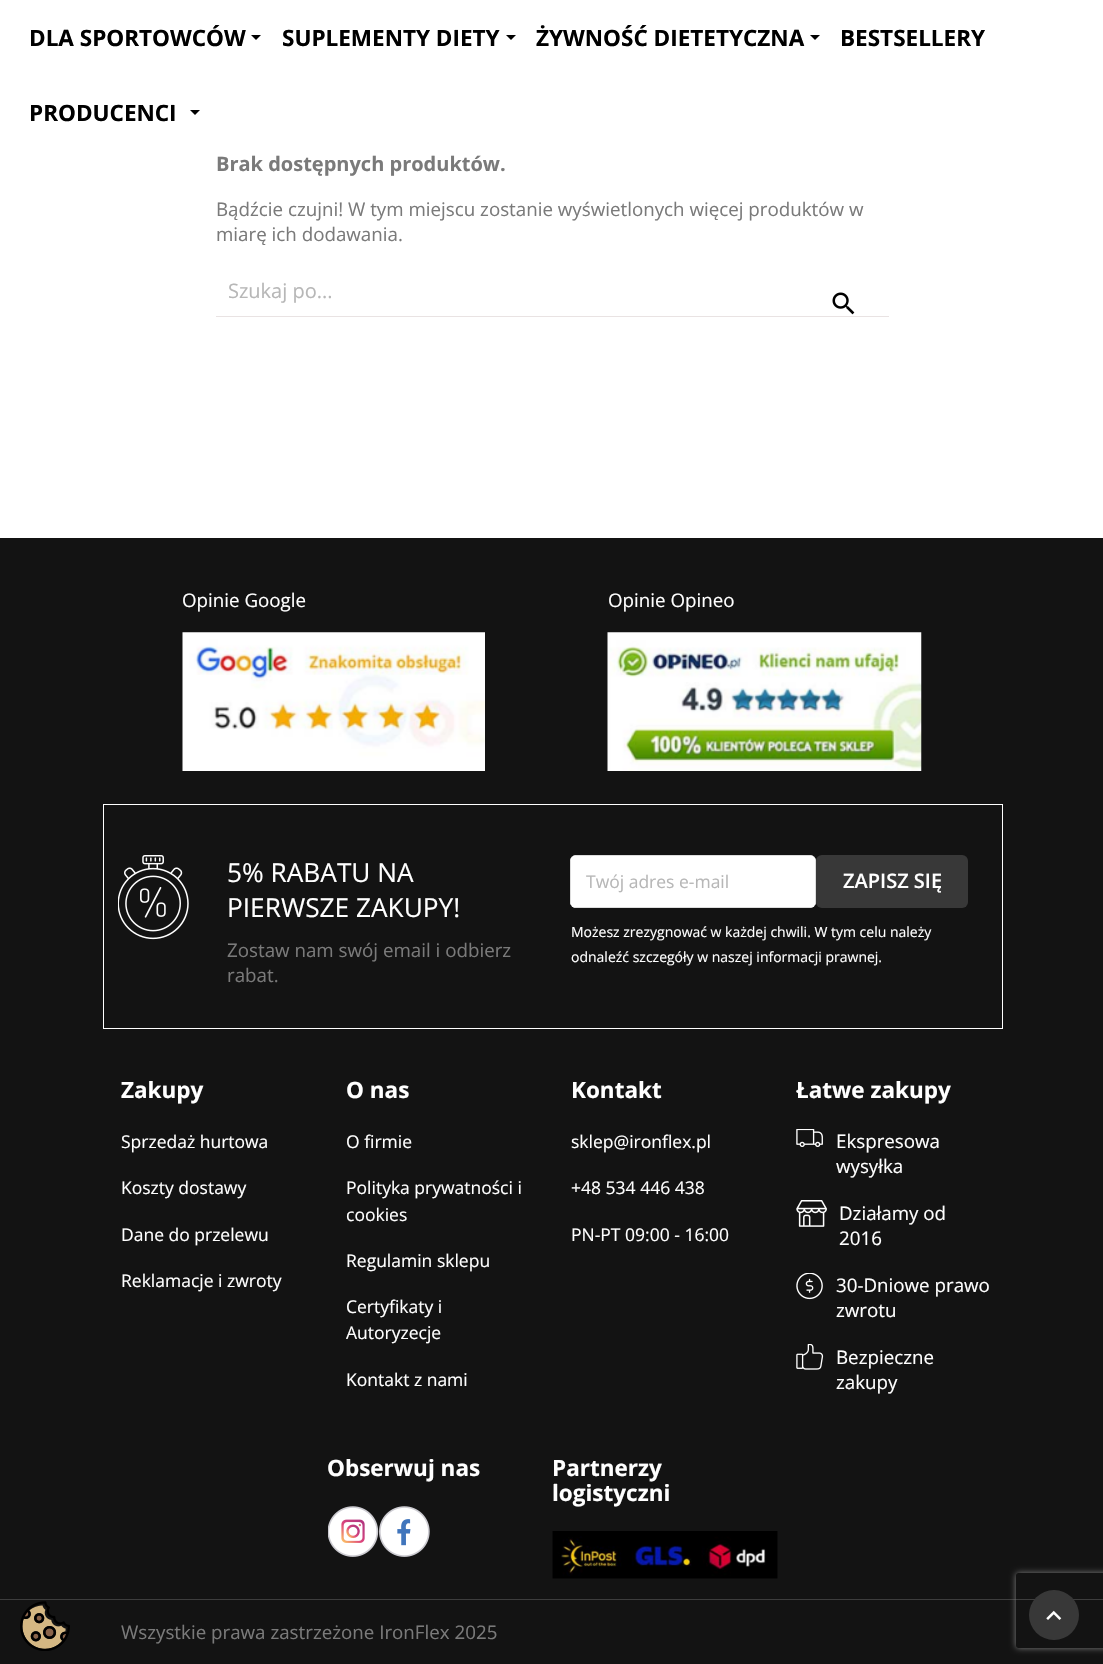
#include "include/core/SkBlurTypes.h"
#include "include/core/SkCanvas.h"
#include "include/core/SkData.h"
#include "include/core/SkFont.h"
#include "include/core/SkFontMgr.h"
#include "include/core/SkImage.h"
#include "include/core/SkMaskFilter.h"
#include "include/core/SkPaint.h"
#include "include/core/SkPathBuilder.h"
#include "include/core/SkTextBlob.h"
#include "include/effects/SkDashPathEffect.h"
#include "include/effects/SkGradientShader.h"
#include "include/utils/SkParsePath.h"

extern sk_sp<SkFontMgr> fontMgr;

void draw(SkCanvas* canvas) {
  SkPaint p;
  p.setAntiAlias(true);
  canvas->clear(SK_ColorWHITE);
  p.setColor(SK_ColorBLACK);
  canvas->drawPath(SkPathBuilder().moveTo(251, 35).lineTo(261, 35).lineTo(256, 40).close().detach(), p);
  canvas->drawPath(SkPathBuilder().moveTo(506, 35).lineTo(516, 35).lineTo(511, 40).close().detach(), p);
  canvas->drawPath(SkPathBuilder().moveTo(810, 35).lineTo(820, 35).lineTo(815, 40).close().detach(), p);
  canvas->drawPath(SkPathBuilder().moveTo(190, 110).lineTo(200, 110).lineTo(195, 115).close().detach(), p);
  p.setColor(SkColorSetRGB(233, 227, 227));
  canvas->drawRect(SkRect::MakeLTRB(216, 316, 889, 317), p);
  canvas->drawImageRect(SkImages::DeferredFromEncodedData(SkData::MakeFromFileName("images/1.png")), SkRect::MakeLTRB(832, 292, 855, 315), SkSamplingOptions());
  p.setColor(SkColorSetRGB(19, 19, 19));
  canvas->drawRect(SkRect::MakeLTRB(0, 538, 1103, 1664), p);
  canvas->drawImageRect(SkImages::DeferredFromEncodedData(SkData::MakeFromFileName("images/2.png")), SkRect::MakeLTRB(182, 632, 485, 771), SkSamplingOptions());
  canvas->drawImageRect(SkImages::DeferredFromEncodedData(SkData::MakeFromFileName("images/3.png")), SkRect::MakeLTRB(607, 632, 922, 771), SkSamplingOptions());
  p.setStyle(SkPaint::kStroke_Style);
  p.setStrokeWidth(1);
  p.setColor(SK_ColorWHITE);
  canvas->drawRect(SkRect::MakeLTRB(103.5f, 804.5f, 1002.5f, 1028.5f), p);
  canvas->drawImageRect(SkImages::DeferredFromEncodedData(SkData::MakeFromFileName("images/4.png")), SkRect::MakeLTRB(118, 855, 189, 940), SkSamplingOptions());
  p.setStyle(SkPaint::kFill_Style);
  canvas->drawRoundRect(SkRect::MakeLTRB(570, 855, 816, 908), 6, 6, p);
  p.setColor(SkColorSetRGB(221, 221, 221));
  canvas->drawPath(SkPathBuilder(SkPathFillType::kEvenOdd).moveTo(570, 861).lineTo(570, 902).cubicTo(570, 903, 570, 904, 571, 905).lineTo(571, 858).close().moveTo(576, 855).lineTo(573, 856).lineTo(813, 856).lineTo(810, 855).close().moveTo(816, 861).lineTo(815, 858).lineTo(815, 905).cubicTo(816, 904, 816, 903, 816, 902).close().moveTo(810, 908).lineTo(813, 907).lineTo(573, 907).cubicTo(574, 908, 575, 908, 576, 908).close().detach(), p);
  p.setColor(SkColorSetRGB(56, 56, 56));
  canvas->drawRoundRect(SkRect::MakeLTRB(816, 855, 968, 908), 6, 6, p);
  canvas->drawImageRect(SkImages::DeferredFromEncodedData(SkData::MakeFromFileName("images/5.png")), SkRect::MakeLTRB(796, 1129, 823, 1147), SkSamplingOptions());
  canvas->drawImageRect(SkImages::DeferredFromEncodedData(SkData::MakeFromFileName("images/6.png")), SkRect::MakeLTRB(796, 1200, 827, 1227), SkSamplingOptions());
  canvas->drawImageRect(SkImages::DeferredFromEncodedData(SkData::MakeFromFileName("images/7.png")), SkRect::MakeLTRB(796, 1273, 823, 1300), SkSamplingOptions());
  canvas->drawImageRect(SkImages::DeferredFromEncodedData(SkData::MakeFromFileName("images/8.png")), SkRect::MakeLTRB(796, 1344, 824, 1370), SkSamplingOptions());
  p.setColor(SkColorSetRGB(61, 61, 61));
  canvas->drawRect(SkRect::MakeLTRB(0, 1599, 1103, 1600), p);
  canvas->save();
  canvas->clipPath(SkPathBuilder(SkPathFillType::kEvenOdd).moveTo(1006, 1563).lineTo(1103, 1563).lineTo(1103, 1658).lineTo(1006, 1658).close().moveTo(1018.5f, 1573).lineTo(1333.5f, 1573).cubicTo(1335, 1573, 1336, 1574, 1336, 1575.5f).lineTo(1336, 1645.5f).cubicTo(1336, 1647, 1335, 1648, 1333.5f, 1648).lineTo(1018.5f, 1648).cubicTo(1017, 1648, 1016, 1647, 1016, 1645.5f).lineTo(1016, 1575.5f).cubicTo(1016, 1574, 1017, 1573, 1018.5f, 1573).close().detach(), true);
  p.setColor(SkColorSetRGB(128, 128, 128));
  p.setMaskFilter(SkMaskFilter::MakeBlur(kNormal_SkBlurStyle, 3));
  canvas->drawRoundRect(SkRect::MakeLTRB(1016, 1573, 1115, 1648), 2.5f, 2.5f, p);
  p.setMaskFilter(nullptr);
  canvas->restore();
  p.setColor(SkColorSetRGB(56, 56, 56));
  canvas->drawCircle(1054, 1615, 25, p);
  canvas->drawImageRect(SkImages::DeferredFromEncodedData(SkData::MakeFromFileName("images/9.png")), SkRect::MakeLTRB(1046, 1610, 1062, 1620), SkSamplingOptions());
  canvas->drawImageRect(SkImages::DeferredFromEncodedData(SkData::MakeFromFileName("images/10.png")), SkRect::MakeLTRB(328, 1506, 379, 1557), SkSamplingOptions());
  canvas->drawImageRect(SkImages::DeferredFromEncodedData(SkData::MakeFromFileName("images/11.png")), SkRect::MakeLTRB(379, 1506, 430, 1557), SkSamplingOptions());
  canvas->drawImageRect(SkImages::DeferredFromEncodedData(SkData::MakeFromFileName("images/12.png")), SkRect::MakeLTRB(552, 1531, 778, 1579), SkSamplingOptions());
  canvas->drawImageRect(SkImages::DeferredFromEncodedData(SkData::MakeFromFileName("images/13.png")), SkRect::MakeLTRB(20, 1601, 70, 1651), SkSamplingOptions());
  SkFont font1(fontMgr->matchFamilyStyle("Open Sans", SkFontStyle::Bold()), 22.5f);
  font1.setSubpixel(true);
  p.setColor(SK_ColorBLACK);
  canvas->drawString("DLA SPORTOWCÓW", 29, 46, font1, p);
  canvas->drawString("SUPLEMENTY DIETY", 282, 46, font1, p);
  canvas->drawString("ŻYWNOŚĆ DIETETYCZNA", 536, 46, font1, p);
  canvas->drawString("BESTSELLERY", 840, 46, font1, p);
  canvas->drawString("PRODUCENCI", 29, 121, font1, p);
  SkFont font2(fontMgr->matchFamilyStyle("Open Sans", SkFontStyle::Bold()), 20);
  font2.setSubpixel(true);
  p.setColor(SkColorSetRGB(122, 122, 122));
  canvas->drawString("Brak dostępnych produktów.", 216, 171, font2, p);
  SkFont font3(fontMgr->matchFamilyStyle("Open Sans", SkFontStyle::Normal()), 18.75f);
  font3.setSubpixel(true);
  canvas->drawString("Bądźcie czujni! W tym miejscu zostanie wyświetlonych więcej produktów w", 216, 216, font3, p);
  canvas->drawString("miarę ich dodawania.", 216, 241, font3, p);
  SkFont font4(fontMgr->matchFamilyStyle("Open Sans", SkFontStyle::Normal()), 20);
  font4.setSubpixel(true);
  p.setColor(SkColorSetRGB(183, 183, 183));
  canvas->drawString("Szukaj po...", 228, 298, font4, p);
  p.setColor(SK_ColorWHITE);
  canvas->drawString("Opinie Google", 182, 607, font3, p);
  canvas->drawString("Opinie Opineo", 608, 607, font3, p);
  SkFont font5(fontMgr->matchFamilyStyle("Open Sans", SkFontStyle::Normal()), 26.25f);
  font5.setSubpixel(true);
  canvas->drawString("5% RABATU NA", 227, 882, font5, p);
  canvas->drawString("PIERWSZE ZAKUPY!", 227, 917, font5, p);
  p.setColor(SkColorSetRGB(122, 122, 122));
  canvas->drawString("Zostaw nam swój email i odbierz", 227, 957, font3, p);
  canvas->drawString("rabat.", 227, 982, font3, p);
  SkFont font6(fontMgr->matchFamilyStyle("Open Sans", SkFontStyle::Normal()), 17.5f);
  font6.setSubpixel(true);
  p.setColor(SkColorSetRGB(183, 183, 183));
  canvas->drawString("Twój adres e-mail", 586, 888, font6, p);
  SkFont font7(fontMgr->matchFamilyStyle("Open Sans", SkFontStyle(600, SkFontStyle::kNormal_Width, SkFontStyle::kUpright_Slant)), 20);
  font7.setSubpixel(true);
  p.setColor(SK_ColorWHITE);
  canvas->drawString("ZAPISZ SIĘ", 843, 888, font7, p);
  SkFont font8(fontMgr->matchFamilyStyle("Open Sans", SkFontStyle::Normal()), 14);
  font8.setSubpixel(true);
  canvas->drawString("Możesz zrezygnować w każdej chwili. W tym celu należy", 571, 937, font8, p);
  canvas->drawString("odnaleźć szczegóły w naszej informacji prawnej.", 571, 962, font8, p);
  canvas->drawString("Zakupy", 121, 1098, font1, p);
  canvas->drawString("Sprzedaż hurtowa", 121, 1148, font6, p);
  canvas->drawString("Koszty dostawy", 121, 1194, font6, p);
  canvas->drawString("Dane do przelewu", 121, 1241, font6, p);
  canvas->drawString("Reklamacje i zwroty", 121, 1287, font6, p);
  canvas->drawString("O nas", 346, 1098, font1, p);
  canvas->drawString("O firmie", 346, 1148, font6, p);
  canvas->drawString("Polityka prywatności i", 346, 1194, font6, p);
  canvas->drawString("cookies", 346, 1221, font6, p);
  canvas->drawString("Regulamin sklepu", 346, 1267, font6, p);
  canvas->drawString("Certyfikaty i", 346, 1313, font6, p);
  canvas->drawString("Autoryzecje", 346, 1339, font6, p);
  canvas->drawString("Kontakt z nami", 346, 1386, font6, p);
  canvas->drawString("Kontakt", 571, 1098, font1, p);
  canvas->drawString("sklep@ironflex.pl", 571, 1148, font6, p);
  canvas->drawString("+48 534 446 438", 571, 1194, font6, p);
  canvas->drawString("PN-PT 09:00 - 16:00", 571, 1241, font6, p);
  canvas->drawString("Łatwe zakupy", 796, 1098, font1, p);
  canvas->drawString("Ekspresowa", 836, 1148, font3, p);
  canvas->drawString("wysyłka", 836, 1173, font3, p);
  canvas->drawString("Działamy od", 839, 1220, font3, p);
  canvas->drawString("2016", 839, 1245, font3, p);
  canvas->drawString("30-Dniowe prawo", 836, 1292, font3, p);
  canvas->drawString("zwrotu", 836, 1317, font3, p);
  canvas->drawString("Bezpieczne", 836, 1364, font3, p);
  canvas->drawString("zakupy", 836, 1389, font3, p);
  canvas->drawString("Obserwuj nas", 327, 1476, font1, p);
  canvas->drawString("Partnerzy", 552, 1476, font1, p);
  canvas->drawString("logistyczni", 552, 1501, font1, p);
  p.setColor(SkColorSetRGB(122, 122, 122));
  canvas->drawString("Wszystkie prawa zastrzeżone IronFlex 2025", 121, 1639, font3, p);
}
